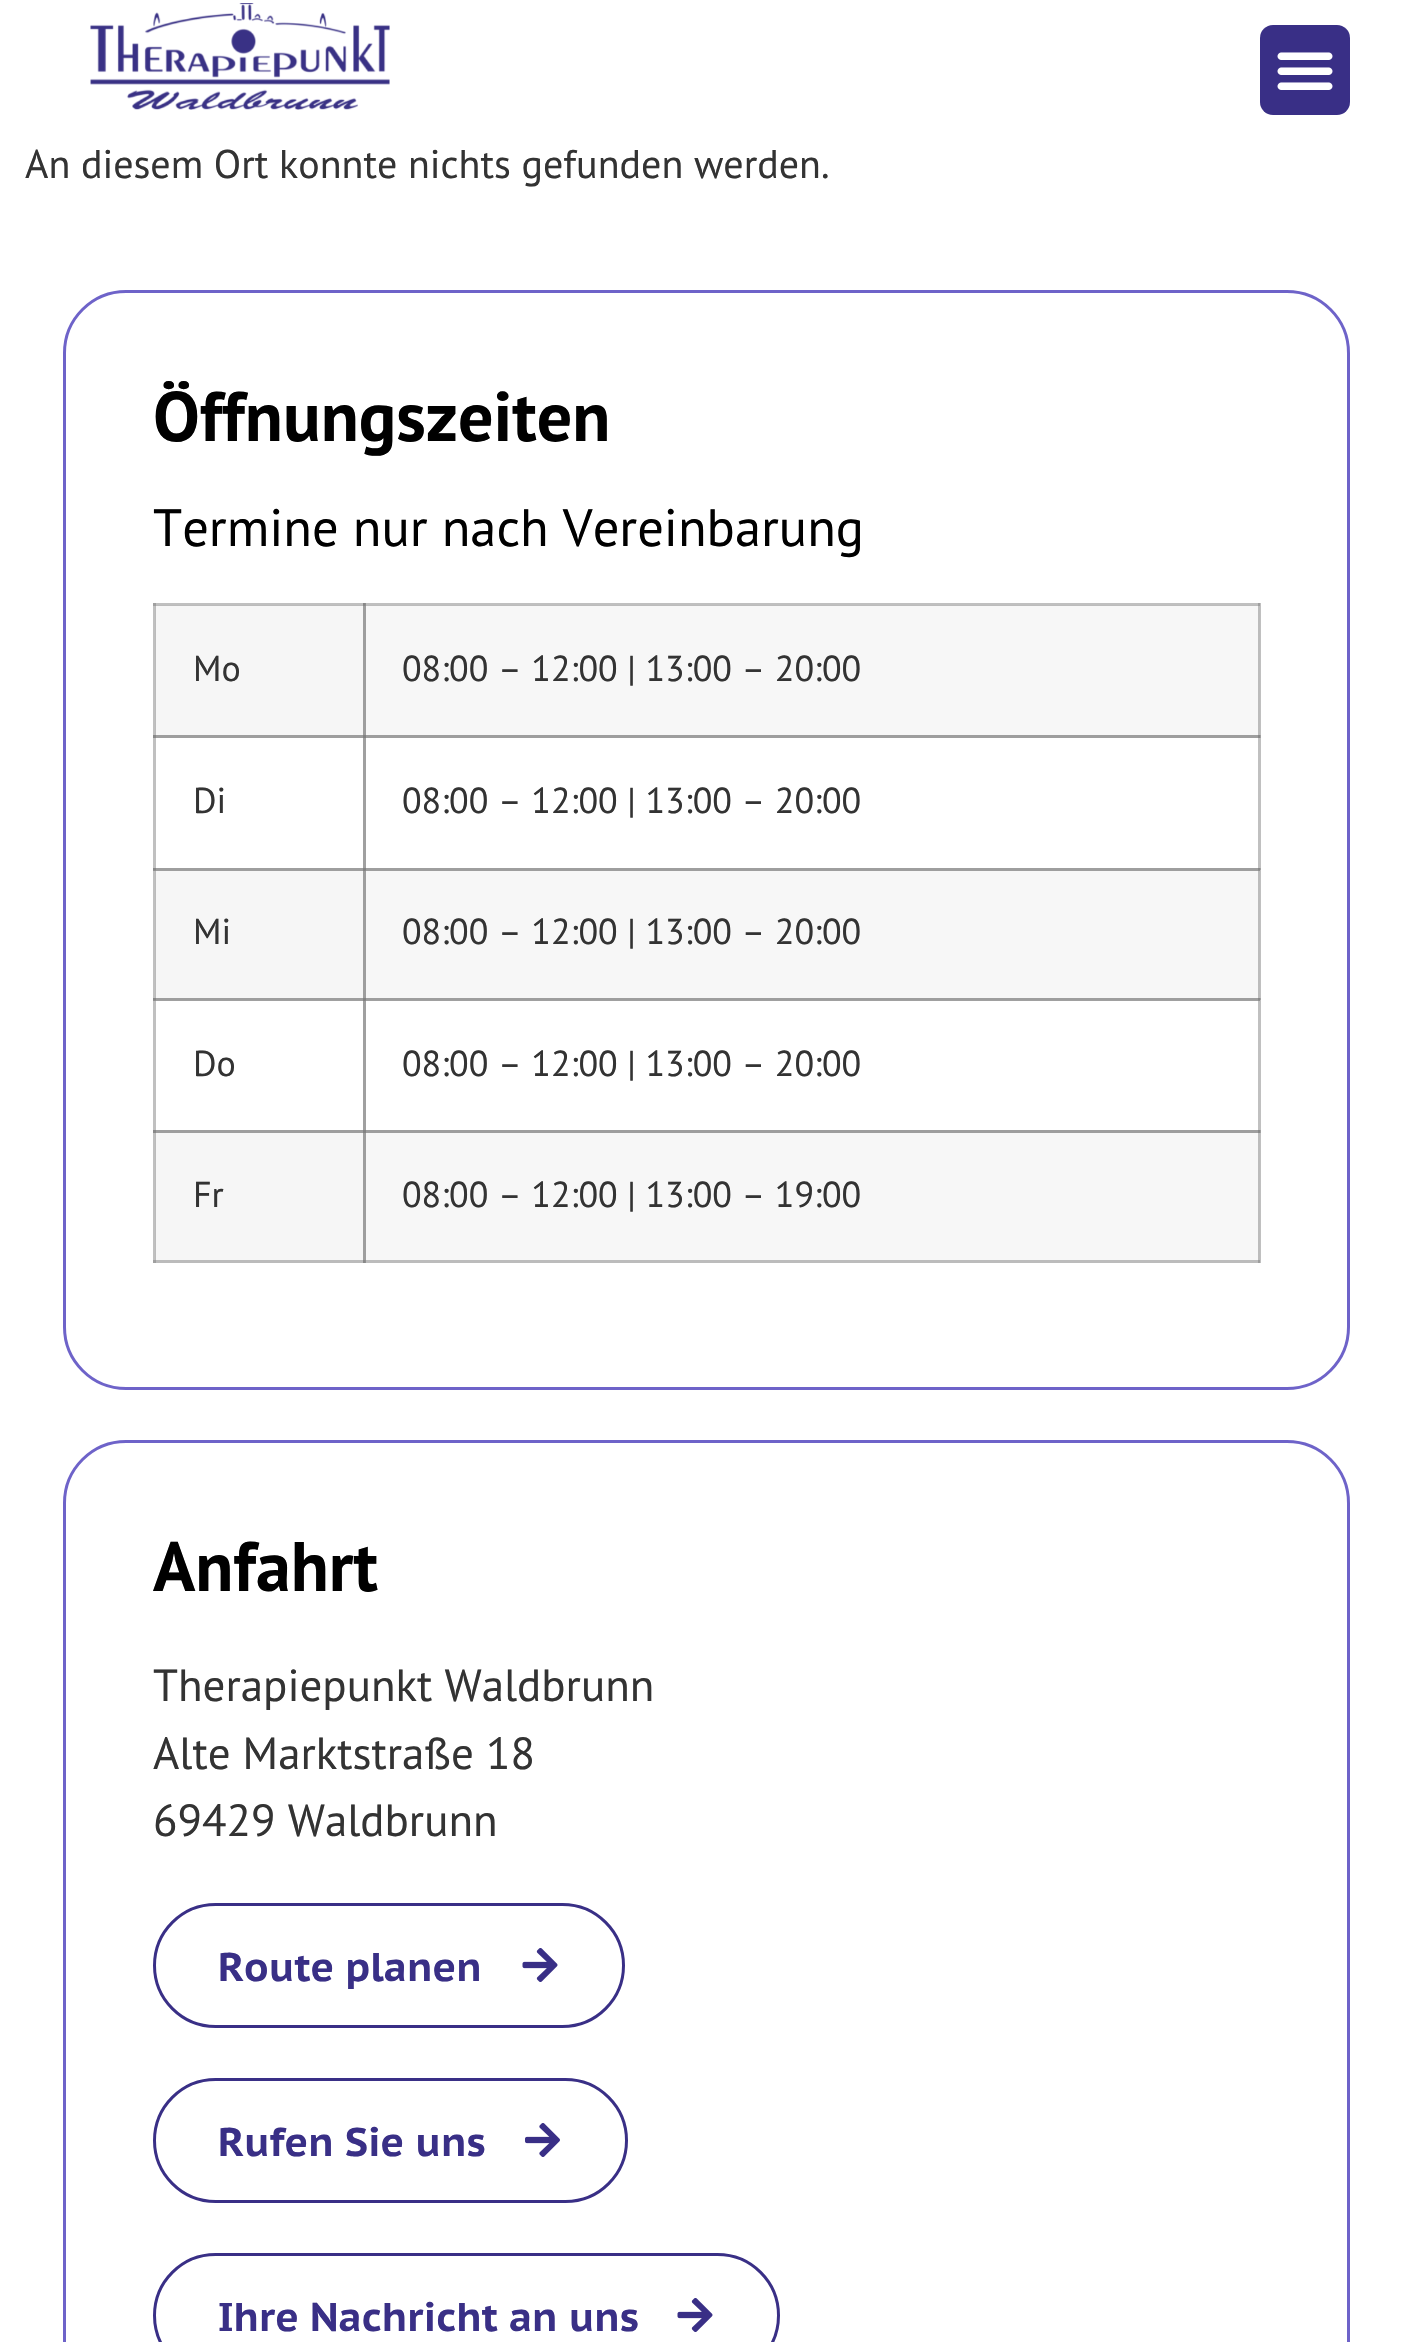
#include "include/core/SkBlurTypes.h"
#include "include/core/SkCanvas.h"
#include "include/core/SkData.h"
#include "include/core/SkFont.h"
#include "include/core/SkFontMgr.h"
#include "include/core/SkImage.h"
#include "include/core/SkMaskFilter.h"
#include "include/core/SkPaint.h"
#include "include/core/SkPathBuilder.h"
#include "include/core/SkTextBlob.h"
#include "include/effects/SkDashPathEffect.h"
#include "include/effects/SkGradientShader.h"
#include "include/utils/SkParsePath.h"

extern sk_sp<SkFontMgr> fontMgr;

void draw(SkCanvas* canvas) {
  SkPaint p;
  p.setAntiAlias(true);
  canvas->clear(SK_ColorWHITE);
  p.setColor(SkColorSetRGB(192, 192, 192));
  canvas->drawRect(SkRect::MakeLTRB(153, 603, 155, 738), p);
  canvas->drawRect(SkRect::MakeLTRB(153, 603, 1260, 605), p);
  p.setColor(SkColorSetRGB(160, 160, 160));
  canvas->drawRect(SkRect::MakeLTRB(153, 603, 156, 606), p);
  p.setColor(SkColorSetRGB(192, 192, 192));
  canvas->drawRect(SkRect::MakeLTRB(1260, 603, 1261, 738), p);
  p.setColor(SkColorSetRGB(144, 144, 144));
  canvas->drawRect(SkRect::MakeLTRB(363, 603, 366, 605), p);
  p.setColor(SkColorSetRGB(136, 136, 136));
  canvas->drawRect(SkRect::MakeLTRB(363, 603, 365, 606), p);
  p.setColor(SkColorSetRGB(160, 160, 160));
  canvas->drawRect(SkRect::MakeLTRB(1258, 603, 1260, 606), p);
  p.setColor(SkColorSetRGB(192, 192, 192));
  canvas->drawRect(SkRect::MakeLTRB(153, 735, 156, 870), p);
  p.setColor(SkColorSetRGB(136, 136, 136));
  canvas->drawRect(SkRect::MakeLTRB(153, 735, 156, 738), p);
  p.setColor(SkColorSetRGB(160, 160, 160));
  canvas->drawRect(SkRect::MakeLTRB(363, 735, 366, 870), p);
  p.setColor(SkColorSetRGB(192, 192, 192));
  canvas->drawRect(SkRect::MakeLTRB(1258, 735, 1261, 870), p);
  p.setColor(SkColorSetRGB(160, 160, 160));
  canvas->drawRect(SkRect::MakeLTRB(1258, 735, 1261, 738), p);
  p.setColor(SkColorSetRGB(192, 192, 192));
  canvas->drawRect(SkRect::MakeLTRB(153, 868, 155, 1000), p);
  p.setColor(SkColorSetRGB(144, 144, 144));
  canvas->drawRect(SkRect::MakeLTRB(153, 870, 156, 871), p);
  p.setColor(SkColorSetRGB(136, 136, 136));
  canvas->drawRect(SkRect::MakeLTRB(153, 868, 156, 870), p);
  p.setColor(SkColorSetRGB(192, 192, 192));
  canvas->drawRect(SkRect::MakeLTRB(1260, 868, 1261, 1000), p);
  p.setColor(SkColorSetRGB(160, 160, 160));
  canvas->drawRect(SkRect::MakeLTRB(1258, 868, 1261, 870), p);
  p.setColor(SkColorSetRGB(192, 192, 192));
  canvas->drawRect(SkRect::MakeLTRB(153, 998, 156, 1133), p);
  p.setColor(SkColorSetRGB(160, 160, 160));
  canvas->drawRect(SkRect::MakeLTRB(153, 1000, 365, 1001), p);
  p.setColor(SkColorSetRGB(144, 144, 144));
  canvas->drawRect(SkRect::MakeLTRB(153, 1000, 156, 1001), p);
  p.setColor(SkColorSetRGB(136, 136, 136));
  canvas->drawRect(SkRect::MakeLTRB(153, 998, 156, 1000), p);
  p.setColor(SkColorSetRGB(160, 160, 160));
  canvas->drawRect(SkRect::MakeLTRB(363, 998, 366, 1133), p);
  p.setColor(SkColorSetRGB(192, 192, 192));
  canvas->drawRect(SkRect::MakeLTRB(1258, 998, 1261, 1133), p);
  p.setColor(SkColorSetRGB(160, 160, 160));
  canvas->drawRect(SkRect::MakeLTRB(1258, 998, 1261, 1000), p);
  canvas->drawRect(SkRect::MakeLTRB(363, 1000, 1260, 1001), p);
  p.setColor(SkColorSetRGB(136, 136, 136));
  canvas->drawRect(SkRect::MakeLTRB(363, 1000, 366, 1001), p);
  p.setColor(SkColorSetRGB(130, 130, 130));
  canvas->drawRect(SkRect::MakeLTRB(363, 998, 365, 1001), p);
  p.setColor(SkColorSetRGB(144, 144, 144));
  canvas->drawRect(SkRect::MakeLTRB(1258, 998, 1260, 1001), p);
  p.setColor(SkColorSetRGB(192, 192, 192));
  canvas->drawRect(SkRect::MakeLTRB(153, 1130, 155, 1263), p);
  p.setColor(SkColorSetRGB(160, 160, 160));
  canvas->drawRect(SkRect::MakeLTRB(153, 1260, 156, 1263), p);
  p.setColor(SkColorSetRGB(136, 136, 136));
  canvas->drawRect(SkRect::MakeLTRB(153, 1130, 156, 1133), p);
  p.setColor(SkColorSetRGB(192, 192, 192));
  canvas->drawRect(SkRect::MakeLTRB(1260, 1130, 1261, 1263), p);
  p.setColor(SkColorSetRGB(160, 160, 160));
  canvas->drawRect(SkRect::MakeLTRB(1258, 1130, 1261, 1133), p);
  canvas->drawImageRect(SkImages::DeferredFromEncodedData(SkData::MakeFromFileName("images/1.png")), SkRect::MakeLTRB(90, 3, 390, 110), SkSamplingOptions());
  p.setColor(SkColorSetRGB(57, 47, 134));
  canvas->drawRoundRect(SkRect::MakeLTRB(1260, 25, 1350, 115), 13, 13, p);
  canvas->drawImageRect(SkImages::DeferredFromEncodedData(SkData::MakeFromFileName("images/2.png")), SkRect::MakeLTRB(1277, 52, 1333, 90), SkSamplingOptions());
  p.setStyle(SkPaint::kStroke_Style);
  p.setStrokeWidth(3);
  p.setColor(SkColorSetRGB(110, 99, 201));
  canvas->drawRoundRect(SkRect::MakeLTRB(64.5f, 291.5f, 1348.5f, 1388.5f), 61.5f, 61.5f, p);
  p.setStyle(SkPaint::kFill_Style);
  p.setColor(SkColorSetRGB(246, 246, 246));
  canvas->drawRect(SkRect::MakeLTRB(156, 606, 363, 735), p);
  p.setColor(SkColorSetRGB(187, 187, 187));
  canvas->drawRect(SkRect::MakeLTRB(155, 605, 156, 738), p);
  canvas->drawRect(SkRect::MakeLTRB(155, 605, 363, 606), p);
  p.setColor(SkColorSetRGB(158, 158, 158));
  canvas->drawRect(SkRect::MakeLTRB(155, 605, 156, 606), p);
  canvas->drawRect(SkRect::MakeLTRB(155, 735, 363, 738), p);
  p.setColor(SkColorSetRGB(136, 136, 136));
  canvas->drawRect(SkRect::MakeLTRB(155, 735, 156, 738), p);
  p.setColor(SkColorSetRGB(247, 247, 247));
  canvas->drawRect(SkRect::MakeLTRB(366, 606, 1258, 735), p);
  p.setColor(SkColorSetRGB(158, 158, 158));
  canvas->drawRect(SkRect::MakeLTRB(363, 605, 366, 738), p);
  p.setColor(SkColorSetRGB(188, 188, 188));
  canvas->drawRect(SkRect::MakeLTRB(1258, 605, 1260, 738), p);
  canvas->drawRect(SkRect::MakeLTRB(363, 605, 1260, 606), p);
  p.setColor(SkColorSetRGB(143, 143, 143));
  canvas->drawRect(SkRect::MakeLTRB(363, 605, 366, 606), p);
  p.setColor(SkColorSetRGB(136, 136, 136));
  canvas->drawRect(SkRect::MakeLTRB(363, 605, 365, 606), p);
  p.setColor(SkColorSetRGB(158, 158, 158));
  canvas->drawRect(SkRect::MakeLTRB(1258, 605, 1260, 606), p);
  canvas->drawRect(SkRect::MakeLTRB(363, 735, 1260, 738), p);
  p.setColor(SkColorSetRGB(130, 130, 130));
  canvas->drawRect(SkRect::MakeLTRB(363, 735, 366, 738), p);
  p.setColor(SkColorSetRGB(136, 136, 136));
  canvas->drawRect(SkRect::MakeLTRB(1258, 735, 1260, 738), p);
  p.setColor(SkColorSetRGB(246, 246, 246));
  canvas->drawRect(SkRect::MakeLTRB(156, 871, 363, 998), p);
  p.setColor(SkColorSetRGB(187, 187, 187));
  canvas->drawRect(SkRect::MakeLTRB(155, 868, 156, 1000), p);
  p.setColor(SkColorSetRGB(158, 158, 158));
  canvas->drawRect(SkRect::MakeLTRB(155, 868, 363, 871), p);
  p.setColor(SkColorSetRGB(143, 143, 143));
  canvas->drawRect(SkRect::MakeLTRB(155, 868, 156, 871), p);
  p.setColor(SkColorSetRGB(136, 136, 136));
  canvas->drawRect(SkRect::MakeLTRB(155, 868, 156, 870), p);
  p.setColor(SkColorSetRGB(158, 158, 158));
  canvas->drawRect(SkRect::MakeLTRB(155, 998, 363, 1000), p);
  p.setColor(SkColorSetRGB(136, 136, 136));
  canvas->drawRect(SkRect::MakeLTRB(155, 998, 156, 1000), p);
  p.setColor(SkColorSetRGB(247, 247, 247));
  canvas->drawRect(SkRect::MakeLTRB(366, 871, 1258, 998), p);
  p.setColor(SkColorSetRGB(158, 158, 158));
  canvas->drawRect(SkRect::MakeLTRB(363, 868, 366, 1000), p);
  p.setColor(SkColorSetRGB(188, 188, 188));
  canvas->drawRect(SkRect::MakeLTRB(1258, 868, 1260, 1000), p);
  p.setColor(SkColorSetRGB(158, 158, 158));
  canvas->drawRect(SkRect::MakeLTRB(363, 998, 1260, 1000), p);
  p.setColor(SkColorSetRGB(130, 130, 130));
  canvas->drawRect(SkRect::MakeLTRB(363, 998, 366, 1000), p);
  p.setColor(SkColorSetRGB(136, 136, 136));
  canvas->drawRect(SkRect::MakeLTRB(1258, 998, 1260, 1000), p);
  p.setColor(SkColorSetRGB(158, 158, 158));
  canvas->drawRect(SkRect::MakeLTRB(363, 868, 1260, 871), p);
  p.setColor(SkColorSetRGB(136, 136, 136));
  canvas->drawRect(SkRect::MakeLTRB(363, 870, 366, 871), p);
  p.setColor(SkColorSetRGB(130, 130, 130));
  canvas->drawRect(SkRect::MakeLTRB(363, 868, 366, 870), p);
  canvas->drawRect(SkRect::MakeLTRB(363, 868, 365, 871), p);
  p.setColor(SkColorSetRGB(143, 143, 143));
  canvas->drawRect(SkRect::MakeLTRB(1258, 868, 1260, 871), p);
  p.setColor(SkColorSetRGB(136, 136, 136));
  canvas->drawRect(SkRect::MakeLTRB(1258, 868, 1260, 870), p);
  p.setColor(SkColorSetRGB(246, 246, 246));
  canvas->drawRect(SkRect::MakeLTRB(156, 1133, 363, 1260), p);
  p.setColor(SkColorSetRGB(187, 187, 187));
  canvas->drawRect(SkRect::MakeLTRB(155, 1130, 156, 1263), p);
  canvas->drawRect(SkRect::MakeLTRB(155, 1260, 363, 1263), p);
  p.setColor(SkColorSetRGB(158, 158, 158));
  canvas->drawRect(SkRect::MakeLTRB(155, 1260, 156, 1263), p);
  canvas->drawRect(SkRect::MakeLTRB(155, 1130, 363, 1133), p);
  p.setColor(SkColorSetRGB(136, 136, 136));
  canvas->drawRect(SkRect::MakeLTRB(155, 1130, 156, 1133), p);
  p.setColor(SkColorSetRGB(247, 247, 247));
  canvas->drawRect(SkRect::MakeLTRB(366, 1133, 1258, 1260), p);
  p.setColor(SkColorSetRGB(158, 158, 158));
  canvas->drawRect(SkRect::MakeLTRB(363, 1130, 366, 1263), p);
  p.setColor(SkColorSetRGB(188, 188, 188));
  canvas->drawRect(SkRect::MakeLTRB(363, 1260, 1260, 1263), p);
  p.setColor(SkColorSetRGB(143, 143, 143));
  canvas->drawRect(SkRect::MakeLTRB(363, 1260, 366, 1263), p);
  p.setColor(SkColorSetRGB(136, 136, 136));
  canvas->drawRect(SkRect::MakeLTRB(363, 1260, 365, 1263), p);
  p.setColor(SkColorSetRGB(188, 188, 188));
  canvas->drawRect(SkRect::MakeLTRB(1258, 1130, 1260, 1263), p);
  p.setColor(SkColorSetRGB(158, 158, 158));
  canvas->drawRect(SkRect::MakeLTRB(1258, 1260, 1260, 1263), p);
  canvas->drawRect(SkRect::MakeLTRB(363, 1130, 1260, 1133), p);
  p.setColor(SkColorSetRGB(130, 130, 130));
  canvas->drawRect(SkRect::MakeLTRB(363, 1130, 366, 1133), p);
  p.setColor(SkColorSetRGB(136, 136, 136));
  canvas->drawRect(SkRect::MakeLTRB(1258, 1130, 1260, 1133), p);
  p.setStyle(SkPaint::kStroke_Style);
  p.setColor(SkColorSetRGB(110, 99, 201));
  canvas->drawRoundRect(SkRect::MakeLTRB(64.5f, 1441.5f, 1348.5f, 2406.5f), 61.5f, 61.5f, p);
  p.setColor(SkColorSetRGB(57, 47, 134));
  canvas->drawRoundRect(SkRect::MakeLTRB(154.5f, 1904.5f, 623.5f, 2026.5f), 61, 61, p);
  canvas->drawImageRect(SkImages::DeferredFromEncodedData(SkData::MakeFromFileName("images/3.png")), SkRect::MakeLTRB(522, 1948, 558, 1982), SkSamplingOptions());
  canvas->drawRoundRect(SkRect::MakeLTRB(154.5f, 2079.5f, 626.5f, 2201.5f), 61, 61, p);
  canvas->drawImageRect(SkImages::DeferredFromEncodedData(SkData::MakeFromFileName("images/4.png")), SkRect::MakeLTRB(525, 2123, 560, 2157), SkSamplingOptions());
  canvas->drawRoundRect(SkRect::MakeLTRB(154.5f, 2254.5f, 778.5f, 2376.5f), 61, 61, p);
  canvas->drawImageRect(SkImages::DeferredFromEncodedData(SkData::MakeFromFileName("images/3.png")), SkRect::MakeLTRB(677, 2298, 713, 2332), SkSamplingOptions());
  SkFont font1(fontMgr->matchFamilyStyle("PT Sans", SkFontStyle::Normal()), 40);
  font1.setSubpixel(true);
  p.setStyle(SkPaint::kFill_Style);
  p.setColor(SkColorSetRGB(51, 51, 51));
  canvas->drawString("An diesem Ort konnte nichts gefunden werden.", 25, 178, font1, p);
  SkFont font2(fontMgr->matchFamilyStyle("PT Sans", SkFontStyle::Bold()), 70);
  font2.setSubpixel(true);
  p.setColor(SK_ColorBLACK);
  canvas->drawString("Öffnungszeiten", 153, 441, font2, p);
  SkFont font3(fontMgr->matchFamilyStyle("PT Sans", SkFontStyle::Normal()), 52.5f);
  font3.setSubpixel(true);
  canvas->drawString("Termine nur nach Vereinbarung", 153, 546, font3, p);
  SkFont font4(fontMgr->matchFamilyStyle("PT Sans", SkFontStyle::Normal()), 36);
  font4.setSubpixel(true);
  p.setColor(SkColorSetRGB(51, 51, 51));
  canvas->drawString("Mo", 193, 681, font4, p);
  canvas->drawString("08:00 – 12:00 | 13:00 – 20:00", 402, 681, font4, p);
  canvas->drawString("Di", 193, 813, font4, p);
  canvas->drawString("08:00 – 12:00 | 13:00 – 20:00", 402, 813, font4, p);
  canvas->drawString("Mi", 193, 944, font4, p);
  canvas->drawString("08:00 – 12:00 | 13:00 – 20:00", 402, 944, font4, p);
  canvas->drawString("Do", 193, 1076, font4, p);
  canvas->drawString("08:00 – 12:00 | 13:00 – 20:00", 402, 1076, font4, p);
  canvas->drawString("Fr", 193, 1207, font4, p);
  canvas->drawString("08:00 – 12:00 | 13:00 – 19:00", 402, 1207, font4, p);
  p.setColor(SK_ColorBLACK);
  canvas->drawString("Anfahrt", 153, 1591, font2, p);
  SkFont font5(fontMgr->matchFamilyStyle("PT Sans", SkFontStyle::Normal()), 45);
  font5.setSubpixel(true);
  p.setColor(SkColorSetRGB(51, 51, 51));
  canvas->drawString("Therapiepunkt Waldbrunn", 153, 1701, font5, p);
  canvas->drawString("Alte Marktstraße 18", 153, 1769, font5, p);
  canvas->drawString("69429 Waldbrunn", 153, 1836, font5, p);
  SkFont font6(fontMgr->matchFamilyStyle("PT Sans Caption", SkFontStyle::Bold()), 40);
  font6.setSubpixel(true);
  p.setColor(SkColorSetRGB(57, 47, 134));
  canvas->drawString("Route planen", 218, 1981, font6, p);
  canvas->drawString("Rufen Sie uns", 218, 2156, font6, p);
  canvas->drawString("Ihre Nachricht an uns", 218, 2331, font6, p);
}
